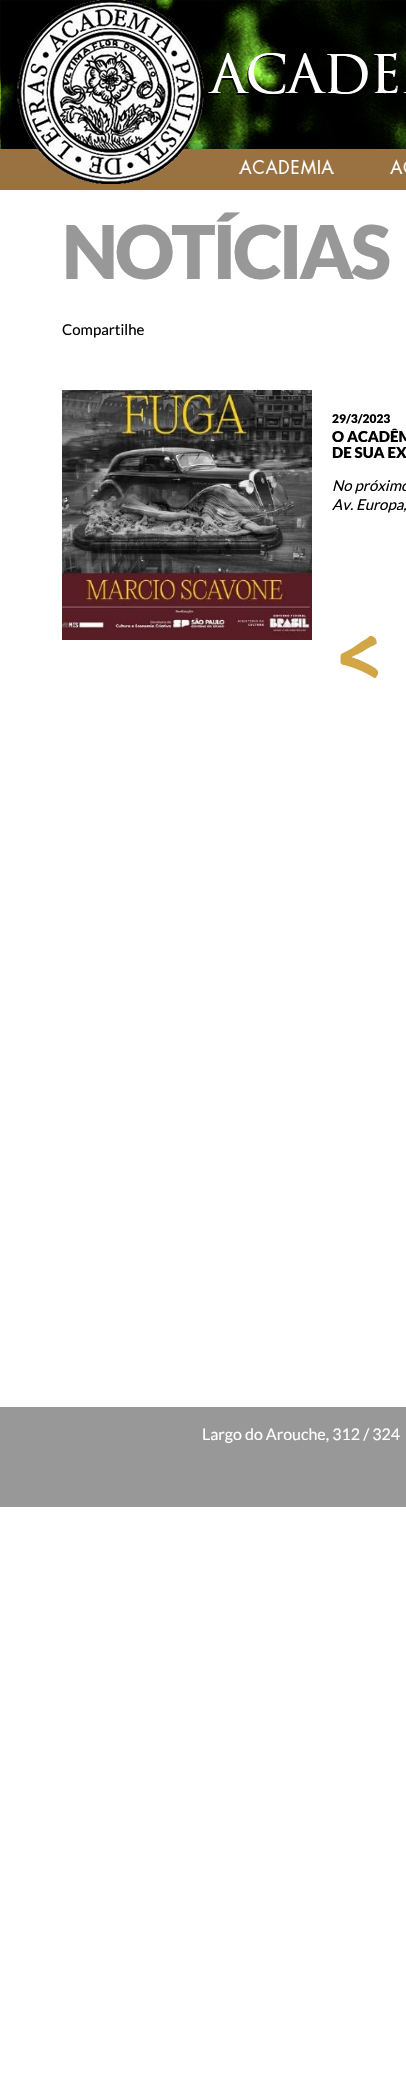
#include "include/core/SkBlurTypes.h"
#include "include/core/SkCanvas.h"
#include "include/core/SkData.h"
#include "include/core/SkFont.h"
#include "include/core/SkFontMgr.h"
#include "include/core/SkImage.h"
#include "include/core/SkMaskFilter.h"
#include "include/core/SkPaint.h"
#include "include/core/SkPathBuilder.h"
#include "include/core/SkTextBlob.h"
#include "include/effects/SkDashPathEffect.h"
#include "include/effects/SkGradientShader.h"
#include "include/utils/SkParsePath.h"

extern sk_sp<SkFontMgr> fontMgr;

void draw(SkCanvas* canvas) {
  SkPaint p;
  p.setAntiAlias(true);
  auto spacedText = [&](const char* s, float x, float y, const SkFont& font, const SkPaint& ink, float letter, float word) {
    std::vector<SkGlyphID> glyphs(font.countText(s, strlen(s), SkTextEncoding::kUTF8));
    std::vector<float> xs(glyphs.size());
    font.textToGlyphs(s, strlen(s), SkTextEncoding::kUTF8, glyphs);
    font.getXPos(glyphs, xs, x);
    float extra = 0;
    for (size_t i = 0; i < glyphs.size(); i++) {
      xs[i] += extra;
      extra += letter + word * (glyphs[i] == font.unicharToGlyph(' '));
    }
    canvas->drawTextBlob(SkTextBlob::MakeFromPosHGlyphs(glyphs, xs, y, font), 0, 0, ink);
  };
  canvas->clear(SK_ColorWHITE);
  p.setColor(SkColorSetRGB(154, 114, 65));
  canvas->drawRect(SkRect::MakeLTRB(0, 184, 216, 190), p);
  canvas->drawImageRect(SkImages::DeferredFromEncodedData(SkData::MakeFromFileName("images/1.png")), SkRect::MakeLTRB(0, 0, 406, 184), SkSamplingOptions());
  canvas->drawRect(SkRect::MakeLTRB(216, 149, 406, 190), p);
  canvas->drawImageRect(SkImages::DeferredFromEncodedData(SkData::MakeFromFileName("images/2.png")), SkRect::MakeLTRB(239, 159, 334, 175), SkSamplingOptions());
  canvas->drawImageRect(SkImages::DeferredFromEncodedData(SkData::MakeFromFileName("images/3.png")), SkRect::MakeLTRB(390, 159, 406, 174), SkSamplingOptions());
  canvas->drawImageRect(SkImages::DeferredFromEncodedData(SkData::MakeFromFileName("images/4.png")), SkRect::MakeLTRB(62, 390, 312, 640), SkSamplingOptions());
  canvas->drawImageRect(SkImages::DeferredFromEncodedData(SkData::MakeFromFileName("images/5.png")), SkRect::MakeLTRB(340, 636, 379, 678), SkSamplingOptions());
  p.setColor(SkColorSetRGB(153, 152, 152));
  canvas->drawRect(SkRect::MakeLTRB(0, 1407, 406, 1507), p);
  SkFont font1(fontMgr->matchFamilyStyle("Lato", SkFontStyle(900, SkFontStyle::kNormal_Width, SkFontStyle::kUpright_Slant)), 74);
  font1.setSubpixel(true);
  spacedText("NOTÍCIAS", 62, 279, font1, p, -3, 0);
  SkFont font2(fontMgr->matchFamilyStyle("Lato", SkFontStyle::Normal()), 15);
  font2.setSubpixel(true);
  p.setColor(SK_ColorBLACK);
  canvas->drawString("Compartilhe", 62, 335, font2, p);
  SkFont font3(fontMgr->matchFamilyStyle("Lato", SkFontStyle(900, SkFontStyle::kNormal_Width, SkFontStyle::kUpright_Slant)), 12);
  font3.setSubpixel(true);
  canvas->drawString("29/3/2023", 332, 423, font3, p);
  SkFont font4(fontMgr->matchFamilyStyle("Lato", SkFontStyle(900, SkFontStyle::kNormal_Width, SkFontStyle::kUpright_Slant)), 15);
  font4.setSubpixel(true);
  canvas->drawString("O ACADÊM", 332, 442, font4, p);
  canvas->drawString("DE SUA EX", 332, 458, font4, p);
  SkFont font5(fontMgr->matchFamilyStyle("Lato", SkFontStyle::Italic()), 15);
  font5.setSubpixel(true);
  canvas->drawString("No próximo", 332, 491, font5, p);
  canvas->drawString("Av. Europa,", 332, 510, font5, p);
  SkFont font6(fontMgr->matchFamilyStyle("Lato", SkFontStyle::Normal()), 16);
  font6.setSubpixel(true);
  p.setColor(SK_ColorWHITE);
  canvas->drawString("Largo do Arouche, 312 / 324", 202, 1440, font6, p);
}
